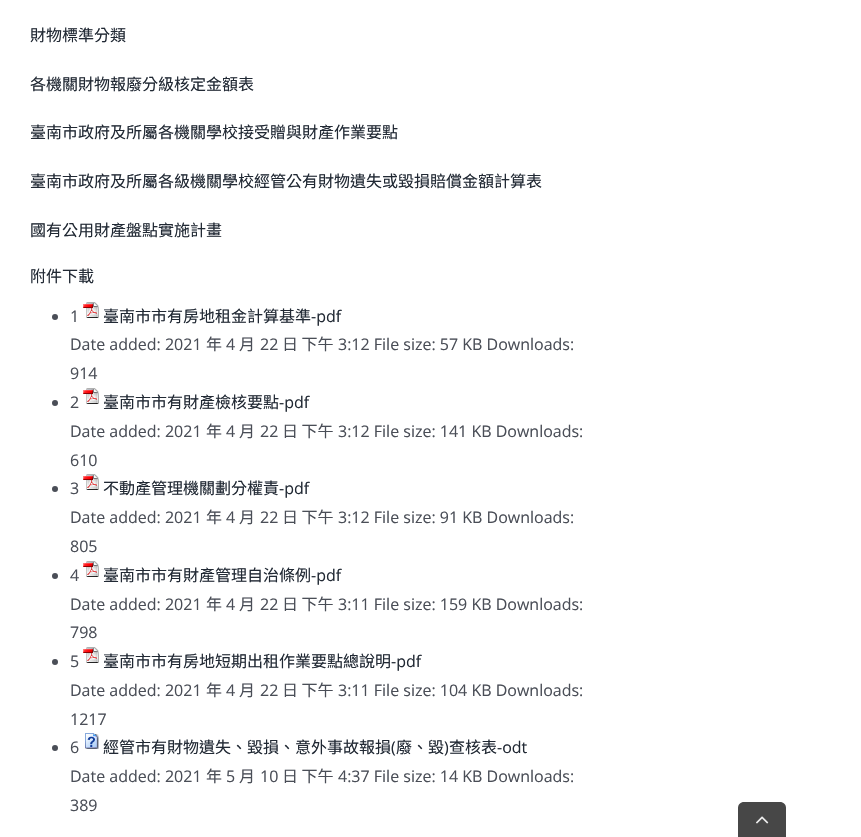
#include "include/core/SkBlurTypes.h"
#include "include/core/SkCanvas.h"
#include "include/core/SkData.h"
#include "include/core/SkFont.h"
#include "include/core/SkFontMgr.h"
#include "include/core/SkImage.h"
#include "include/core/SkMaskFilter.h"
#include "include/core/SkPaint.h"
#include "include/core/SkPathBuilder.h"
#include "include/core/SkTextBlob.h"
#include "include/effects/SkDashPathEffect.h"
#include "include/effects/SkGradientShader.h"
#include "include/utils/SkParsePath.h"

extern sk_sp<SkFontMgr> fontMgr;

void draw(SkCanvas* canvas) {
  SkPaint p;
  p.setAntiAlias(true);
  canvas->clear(SK_ColorWHITE);
  p.setColor(SkColorSetRGB(74, 78, 87));
  canvas->drawCircle(55, 317, 3, p);
  canvas->drawImageRect(SkImages::DeferredFromEncodedData(SkData::MakeFromFileName("images/1.png")), SkRect::MakeLTRB(83, 302, 99, 318), SkSamplingOptions());
  canvas->drawCircle(55, 403, 3, p);
  canvas->drawImageRect(SkImages::DeferredFromEncodedData(SkData::MakeFromFileName("images/1.png")), SkRect::MakeLTRB(83, 388, 99, 404), SkSamplingOptions());
  canvas->drawCircle(55, 489, 3, p);
  canvas->drawImageRect(SkImages::DeferredFromEncodedData(SkData::MakeFromFileName("images/1.png")), SkRect::MakeLTRB(83, 474, 99, 490), SkSamplingOptions());
  canvas->drawCircle(55, 576, 3, p);
  canvas->drawImageRect(SkImages::DeferredFromEncodedData(SkData::MakeFromFileName("images/1.png")), SkRect::MakeLTRB(83, 561, 99, 577), SkSamplingOptions());
  canvas->drawCircle(55, 662, 3, p);
  canvas->drawImageRect(SkImages::DeferredFromEncodedData(SkData::MakeFromFileName("images/1.png")), SkRect::MakeLTRB(83, 647, 99, 663), SkSamplingOptions());
  canvas->drawCircle(55, 748, 3, p);
  canvas->drawImageRect(SkImages::DeferredFromEncodedData(SkData::MakeFromFileName("images/2.png")), SkRect::MakeLTRB(85, 733, 99, 749), SkSamplingOptions());
  p.setColor(SkColorSetRGB(71, 71, 71));
  canvas->drawPath(SkPathBuilder().moveTo(744, 802).lineTo(780, 802).cubicTo(783.5f, 802, 786, 804.5f, 786, 808).lineTo(786, 837).lineTo(738, 837).lineTo(738, 808).cubicTo(738, 804.5f, 740.5f, 802, 744, 802).close().detach(), p);
  canvas->drawImageRect(SkImages::DeferredFromEncodedData(SkData::MakeFromFileName("images/3.png")), SkRect::MakeLTRB(756, 816, 769, 824), SkSamplingOptions());
  SkFont font1(fontMgr->matchFamilyStyle("Noto Sans CJK TC", SkFontStyle::Normal()), 16);
  font1.setSubpixel(true);
  p.setColor(SkColorSetRGB(33, 41, 52));
  canvas->drawString("財物標準分類", 30, 41, font1, p);
  canvas->drawString("各機關財物報廢分級核定金額表", 30, 90, font1, p);
  canvas->drawString("臺南市政府及所屬各機關學校接受贈與財產作業要點", 30, 138, font1, p);
  canvas->drawString("臺南市政府及所屬各級機關學校經管公有財物遺失或毀損賠償金額計算表", 30, 187, font1, p);
  canvas->drawString("國有公用財產盤點實施計畫", 30, 236, font1, p);
  SkFont font2(fontMgr->matchFamilyStyle("Noto Sans TC", SkFontStyle(100, SkFontStyle::kNormal_Width, SkFontStyle::kUpright_Slant)), 16);
  font2.setSubpixel(true);
  canvas->drawString("附件下載", 30, 282, font2, p);
  SkFont font3(fontMgr->matchFamilyStyle("Open Sans", SkFontStyle::Normal()), 16);
  font3.setSubpixel(true);
  p.setColor(SkColorSetRGB(74, 78, 87));
  canvas->drawString("1", 70, 322, font3, p);
  p.setColor(SkColorSetRGB(33, 41, 52));
  canvas->drawString("臺南市市有房地租金計算基準", 103, 322, font1, p);
  canvas->drawString("-pdf", 311, 322, font3, p);
  p.setColor(SkColorSetRGB(74, 78, 87));
  canvas->drawString("Date added: 2021", 70, 350, font3, p);
  canvas->drawString("年", 206, 350, font1, p);
  canvas->drawString("4", 226, 350, font3, p);
  canvas->drawString("月", 239, 350, font1, p);
  canvas->drawString("22", 260, 350, font3, p);
  canvas->drawString("日 下午", 282, 350, font1, p);
  canvas->drawString("3:12 File size: 57 KB Downloads:", 338, 350, font3, p);
  canvas->drawString("914", 70, 379, font3, p);
  canvas->drawString("2", 70, 408, font3, p);
  p.setColor(SkColorSetRGB(33, 41, 52));
  canvas->drawString("臺南市市有財產檢核要點", 103, 408, font1, p);
  canvas->drawString("-pdf", 279, 408, font3, p);
  p.setColor(SkColorSetRGB(74, 78, 87));
  canvas->drawString("Date added: 2021", 70, 437, font3, p);
  canvas->drawString("年", 206, 437, font1, p);
  canvas->drawString("4", 226, 437, font3, p);
  canvas->drawString("月", 239, 437, font1, p);
  canvas->drawString("22", 260, 437, font3, p);
  canvas->drawString("日 下午", 282, 437, font1, p);
  canvas->drawString("3:12 File size: 141 KB Downloads:", 338, 437, font3, p);
  canvas->drawString("610", 70, 466, font3, p);
  canvas->drawString("3", 70, 494, font3, p);
  p.setColor(SkColorSetRGB(33, 41, 52));
  canvas->drawString("不動產管理機關劃分權責", 103, 494, font1, p);
  canvas->drawString("-pdf", 279, 494, font3, p);
  p.setColor(SkColorSetRGB(74, 78, 87));
  canvas->drawString("Date added: 2021", 70, 523, font3, p);
  canvas->drawString("年", 206, 523, font1, p);
  canvas->drawString("4", 226, 523, font3, p);
  canvas->drawString("月", 239, 523, font1, p);
  canvas->drawString("22", 260, 523, font3, p);
  canvas->drawString("日 下午", 282, 523, font1, p);
  canvas->drawString("3:12 File size: 91 KB Downloads:", 338, 523, font3, p);
  canvas->drawString("805", 70, 552, font3, p);
  canvas->drawString("4", 70, 581, font3, p);
  p.setColor(SkColorSetRGB(33, 41, 52));
  canvas->drawString("臺南市市有財產管理自治條例", 103, 581, font1, p);
  canvas->drawString("-pdf", 311, 581, font3, p);
  p.setColor(SkColorSetRGB(74, 78, 87));
  canvas->drawString("Date added: 2021", 70, 610, font3, p);
  canvas->drawString("年", 206, 610, font1, p);
  canvas->drawString("4", 226, 610, font3, p);
  canvas->drawString("月", 239, 610, font1, p);
  canvas->drawString("22", 260, 610, font3, p);
  canvas->drawString("日 下午", 282, 610, font1, p);
  canvas->drawString("3:11 File size: 159 KB Downloads:", 338, 610, font3, p);
  canvas->drawString("798", 70, 638, font3, p);
  canvas->drawString("5", 70, 667, font3, p);
  p.setColor(SkColorSetRGB(33, 41, 52));
  canvas->drawString("臺南市市有房地短期出租作業要點總說明", 103, 667, font1, p);
  canvas->drawString("-pdf", 391, 667, font3, p);
  p.setColor(SkColorSetRGB(74, 78, 87));
  canvas->drawString("Date added: 2021", 70, 696, font3, p);
  canvas->drawString("年", 206, 696, font1, p);
  canvas->drawString("4", 226, 696, font3, p);
  canvas->drawString("月", 239, 696, font1, p);
  canvas->drawString("22", 260, 696, font3, p);
  canvas->drawString("日 下午", 282, 696, font1, p);
  canvas->drawString("3:11 File size: 104 KB Downloads:", 338, 696, font3, p);
  canvas->drawString("1217", 70, 725, font3, p);
  canvas->drawString("6", 70, 753, font3, p);
  p.setColor(SkColorSetRGB(33, 41, 52));
  canvas->drawString("經管市有財物遺失、毀損、意外事故報損", 103, 753, font1, p);
  canvas->drawString("(", 391, 753, font3, p);
  canvas->drawString("廢、毀", 396, 753, font1, p);
  canvas->drawString(")", 444, 753, font3, p);
  canvas->drawString("查核表", 449, 753, font1, p);
  canvas->drawString("-odt", 497, 753, font3, p);
  p.setColor(SkColorSetRGB(74, 78, 87));
  canvas->drawString("Date added: 2021", 70, 782, font3, p);
  canvas->drawString("年", 206, 782, font1, p);
  canvas->drawString("5", 226, 782, font3, p);
  canvas->drawString("月", 239, 782, font1, p);
  canvas->drawString("10", 260, 782, font3, p);
  canvas->drawString("日 下午", 282, 782, font1, p);
  canvas->drawString("4:37 File size: 14 KB Downloads:", 338, 782, font3, p);
  canvas->drawString("389", 70, 811, font3, p);
}
